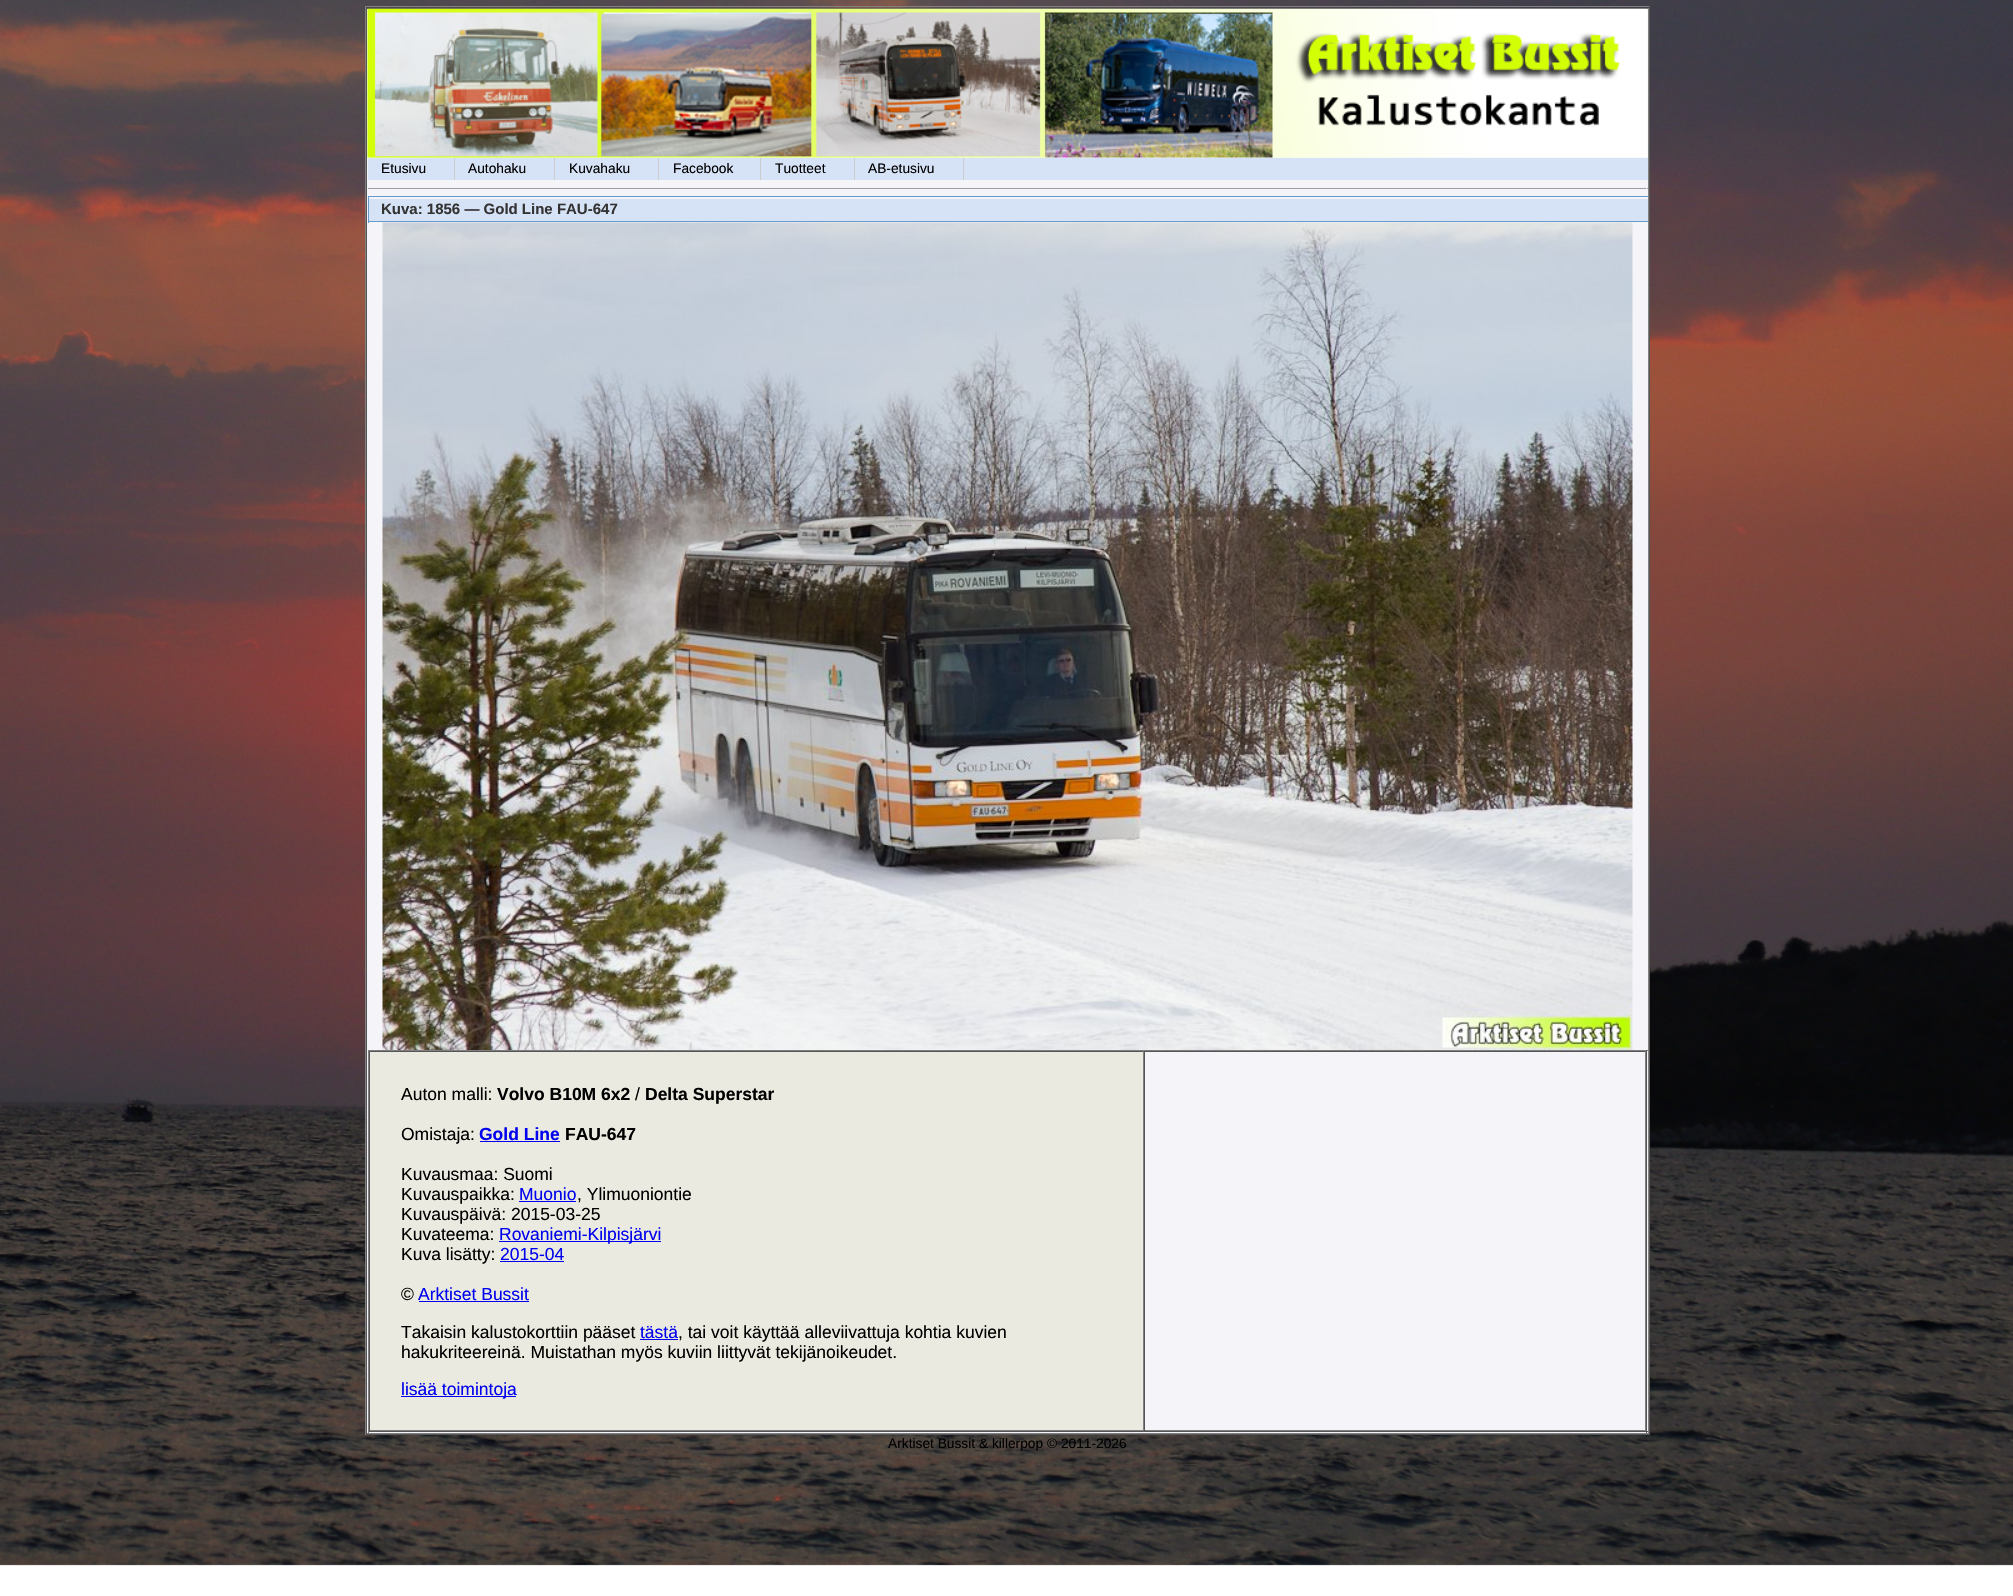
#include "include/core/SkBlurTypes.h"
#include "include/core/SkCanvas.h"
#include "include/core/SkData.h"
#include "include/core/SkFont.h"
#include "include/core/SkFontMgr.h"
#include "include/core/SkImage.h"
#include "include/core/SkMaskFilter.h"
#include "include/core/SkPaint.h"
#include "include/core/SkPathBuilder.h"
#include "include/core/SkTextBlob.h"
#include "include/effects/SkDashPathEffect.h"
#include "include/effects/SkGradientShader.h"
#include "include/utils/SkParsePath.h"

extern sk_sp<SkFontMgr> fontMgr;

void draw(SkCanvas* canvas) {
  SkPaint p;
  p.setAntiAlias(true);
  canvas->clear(SK_ColorWHITE);
  canvas->drawImageRect(SkImages::DeferredFromEncodedData(SkData::MakeFromFileName("images/1.png")), SkRect::MakeLTRB(0, 0, 2013, 1566), SkSamplingOptions());
  p.setColor(SkColorSetRGB(128, 128, 128));
  canvas->drawRect(SkRect::MakeLTRB(365, 6, 1650, 7), p);
  p.setColor(SkColorSetRGB(85, 85, 85));
  canvas->drawRect(SkRect::MakeLTRB(1649, 6, 1650, 1435), p);
  canvas->drawRect(SkRect::MakeLTRB(365, 1434, 1650, 1435), p);
  p.setColor(SkColorSetRGB(128, 128, 128));
  canvas->drawRect(SkRect::MakeLTRB(365, 6, 366, 1435), p);
  p.setColor(SkColorSetRGB(245, 245, 249));
  canvas->drawRect(SkRect::MakeLTRB(367, 9, 1648, 1433), p);
  p.setColor(SkColorSetRGB(85, 85, 85));
  canvas->drawRect(SkRect::MakeLTRB(366, 8, 1649, 9), p);
  p.setColor(SkColorSetRGB(128, 128, 128));
  canvas->drawRect(SkRect::MakeLTRB(1648, 8, 1649, 1434), p);
  canvas->drawRect(SkRect::MakeLTRB(366, 1433, 1649, 1434), p);
  p.setColor(SkColorSetRGB(85, 85, 85));
  canvas->drawRect(SkRect::MakeLTRB(366, 8, 367, 1434), p);
  canvas->drawImageRect(SkImages::DeferredFromEncodedData(SkData::MakeFromFileName("images/2.png")), SkRect::MakeLTRB(367, 8, 1648, 158), SkSamplingOptions());
  p.setColor(SkColorSetRGB(214, 226, 245));
  canvas->drawRect(SkRect::MakeLTRB(368, 158, 1648, 180), p);
  p.setColor(SkColorSetRGB(204, 204, 204));
  canvas->drawRect(SkRect::MakeLTRB(454, 158, 455, 180), p);
  canvas->drawRect(SkRect::MakeLTRB(554, 158, 555, 180), p);
  canvas->drawRect(SkRect::MakeLTRB(658, 158, 659, 180), p);
  canvas->drawRect(SkRect::MakeLTRB(760, 158, 761, 180), p);
  canvas->drawRect(SkRect::MakeLTRB(854, 158, 855, 180), p);
  canvas->drawRect(SkRect::MakeLTRB(963, 158, 964, 180), p);
  p.setColor(SkColorSetRGB(159, 159, 159));
  canvas->drawRect(SkRect::MakeLTRB(368, 188, 1648, 189), p);
  p.setColor(SkColorSetRGB(238, 238, 238));
  canvas->drawRect(SkRect::MakeLTRB(1646, 188, 1647, 189), p);
  p.setColor(SkColorSetRGB(214, 226, 245));
  canvas->drawRect(SkRect::MakeLTRB(369, 199, 1648, 221), p);
  p.setColor(SkColorSetRGB(102, 153, 204));
  canvas->drawRect(SkRect::MakeLTRB(368, 196, 1648, 197), p);
  canvas->drawRect(SkRect::MakeLTRB(368, 221, 1648, 222), p);
  canvas->drawRect(SkRect::MakeLTRB(368, 196, 369, 223), p);
  canvas->drawImageRect(SkImages::DeferredFromEncodedData(SkData::MakeFromFileName("images/3.png")), SkRect::MakeLTRB(382, 222, 1633, 1050), SkSamplingOptions());
  p.setColor(SkColorSetRGB(128, 128, 128));
  canvas->drawRect(SkRect::MakeLTRB(368, 1050, 1648, 1051), p);
  p.setColor(SkColorSetRGB(85, 85, 85));
  canvas->drawRect(SkRect::MakeLTRB(1646, 1050, 1647, 1433), p);
  canvas->drawRect(SkRect::MakeLTRB(368, 1431, 1648, 1432), p);
  p.setColor(SkColorSetRGB(128, 128, 128));
  canvas->drawRect(SkRect::MakeLTRB(368, 1050, 369, 1433), p);
  p.setColor(SkColorSetRGB(234, 234, 224));
  canvas->drawRect(SkRect::MakeLTRB(370, 1052, 1143, 1430), p);
  p.setColor(SkColorSetRGB(85, 85, 85));
  canvas->drawRect(SkRect::MakeLTRB(369, 1051, 1646, 1052), p);
  p.setColor(SkColorSetRGB(128, 128, 128));
  canvas->drawRect(SkRect::MakeLTRB(1143, 1051, 1144, 1431), p);
  canvas->drawRect(SkRect::MakeLTRB(369, 1430, 1144, 1431), p);
  p.setColor(SkColorSetRGB(85, 85, 85));
  canvas->drawRect(SkRect::MakeLTRB(369, 1051, 370, 1431), p);
  p.setColor(SkColorSetRGB(0, 0, 238));
  canvas->drawRect(SkRect::MakeLTRB(480, 1141, 560, 1142), p);
  canvas->drawRect(SkRect::MakeLTRB(519, 1201, 576, 1202), p);
  canvas->drawRect(SkRect::MakeLTRB(499, 1241, 661, 1242), p);
  canvas->drawRect(SkRect::MakeLTRB(500, 1261, 564, 1262), p);
  canvas->drawRect(SkRect::MakeLTRB(419, 1301, 529, 1302), p);
  canvas->drawRect(SkRect::MakeLTRB(640, 1339, 678, 1340), p);
  canvas->drawRect(SkRect::MakeLTRB(401, 1396, 516, 1397), p);
  p.setColor(SkColorSetRGB(128, 128, 128));
  canvas->drawRect(SkRect::MakeLTRB(1645, 1051, 1646, 1431), p);
  canvas->drawRect(SkRect::MakeLTRB(1144, 1430, 1646, 1431), p);
  p.setColor(SkColorSetRGB(85, 85, 85));
  canvas->drawRect(SkRect::MakeLTRB(1144, 1051, 1145, 1431), p);
  SkFont font1(fontMgr->matchFamilyStyle("Liberation Sans", SkFontStyle::Normal()), 13.75f);
  font1.setSubpixel(true);
  p.setColor(SK_ColorBLACK);
  canvas->drawString("Etusivu", 381, 173, font1, p);
  canvas->drawString("Autohaku", 468, 173, font1, p);
  canvas->drawString("Kuvahaku", 569, 173, font1, p);
  canvas->drawString("Facebook", 673, 173, font1, p);
  canvas->drawString("Tuotteet", 775, 173, font1, p);
  canvas->drawString("AB-etusivu", 868, 173, font1, p);
  SkFont font2(fontMgr->matchFamilyStyle("Liberation Sans", SkFontStyle::Bold()), 15);
  font2.setSubpixel(true);
  p.setColor(SkColorSetRGB(51, 51, 51));
  canvas->drawString("Kuva: 1856 — Gold Line FAU-647", 381, 214, font2, p);
  SkFont font3(fontMgr->matchFamilyStyle("Liberation Sans", SkFontStyle::Normal()), 17.5f);
  font3.setSubpixel(true);
  p.setColor(SK_ColorBLACK);
  canvas->drawString("Auton malli:", 401, 1100, font3, p);
  SkFont font4(fontMgr->matchFamilyStyle("Liberation Sans", SkFontStyle::Bold()), 17.5f);
  font4.setSubpixel(true);
  canvas->drawString("Volvo B10M 6x2", 497, 1100, font4, p);
  canvas->drawString("/", 635, 1100, font3, p);
  canvas->drawString("Delta Superstar", 645, 1100, font4, p);
  canvas->drawString("Omistaja:", 401, 1140, font3, p);
  p.setColor(SkColorSetRGB(0, 0, 238));
  canvas->drawString("Gold Line", 479, 1140, font4, p);
  p.setColor(SK_ColorBLACK);
  canvas->drawString("FAU-647", 565, 1140, font4, p);
  canvas->drawString("Kuvausmaa: Suomi", 401, 1180, font3, p);
  canvas->drawString("Kuvauspaikka:", 401, 1200, font3, p);
  p.setColor(SkColorSetRGB(0, 0, 238));
  canvas->drawString("Muonio", 519, 1200, font3, p);
  p.setColor(SK_ColorBLACK);
  canvas->drawString(", Ylimuoniontie", 577, 1200, font3, p);
  canvas->drawString("Kuvauspäivä: 2015-03-25", 401, 1220, font3, p);
  canvas->drawString("Kuvateema:", 401, 1240, font3, p);
  p.setColor(SkColorSetRGB(0, 0, 238));
  canvas->drawString("Rovaniemi-Kilpisjärvi", 499, 1240, font3, p);
  p.setColor(SK_ColorBLACK);
  canvas->drawString("Kuva lisätty:", 401, 1260, font3, p);
  p.setColor(SkColorSetRGB(0, 0, 238));
  canvas->drawString("2015-04", 500, 1260, font3, p);
  p.setColor(SK_ColorBLACK);
  canvas->drawString("©", 401, 1300, font3, p);
  p.setColor(SkColorSetRGB(0, 0, 238));
  canvas->drawString("Arktiset Bussit", 418, 1300, font3, p);
  p.setColor(SK_ColorBLACK);
  canvas->drawString("Takaisin kalustokorttiin pääset", 401, 1338, font3, p);
  p.setColor(SkColorSetRGB(0, 0, 238));
  canvas->drawString("tästä", 640, 1338, font3, p);
  p.setColor(SK_ColorBLACK);
  canvas->drawString(", tai voit käyttää alleviivattuja kohtia kuvien", 678, 1338, font3, p);
  canvas->drawString("hakukriteereinä. Muistathan myös kuviin liittyvät tekijänoikeudet.", 401, 1358, font3, p);
  p.setColor(SkColorSetRGB(0, 0, 238));
  canvas->drawString("lisää toimintoja", 401, 1395, font3, p);
  p.setColor(SK_ColorBLACK);
  canvas->drawString("Arktiset Bussit & killerpop © 2011-2026", 888, 1448, font1, p);
}
